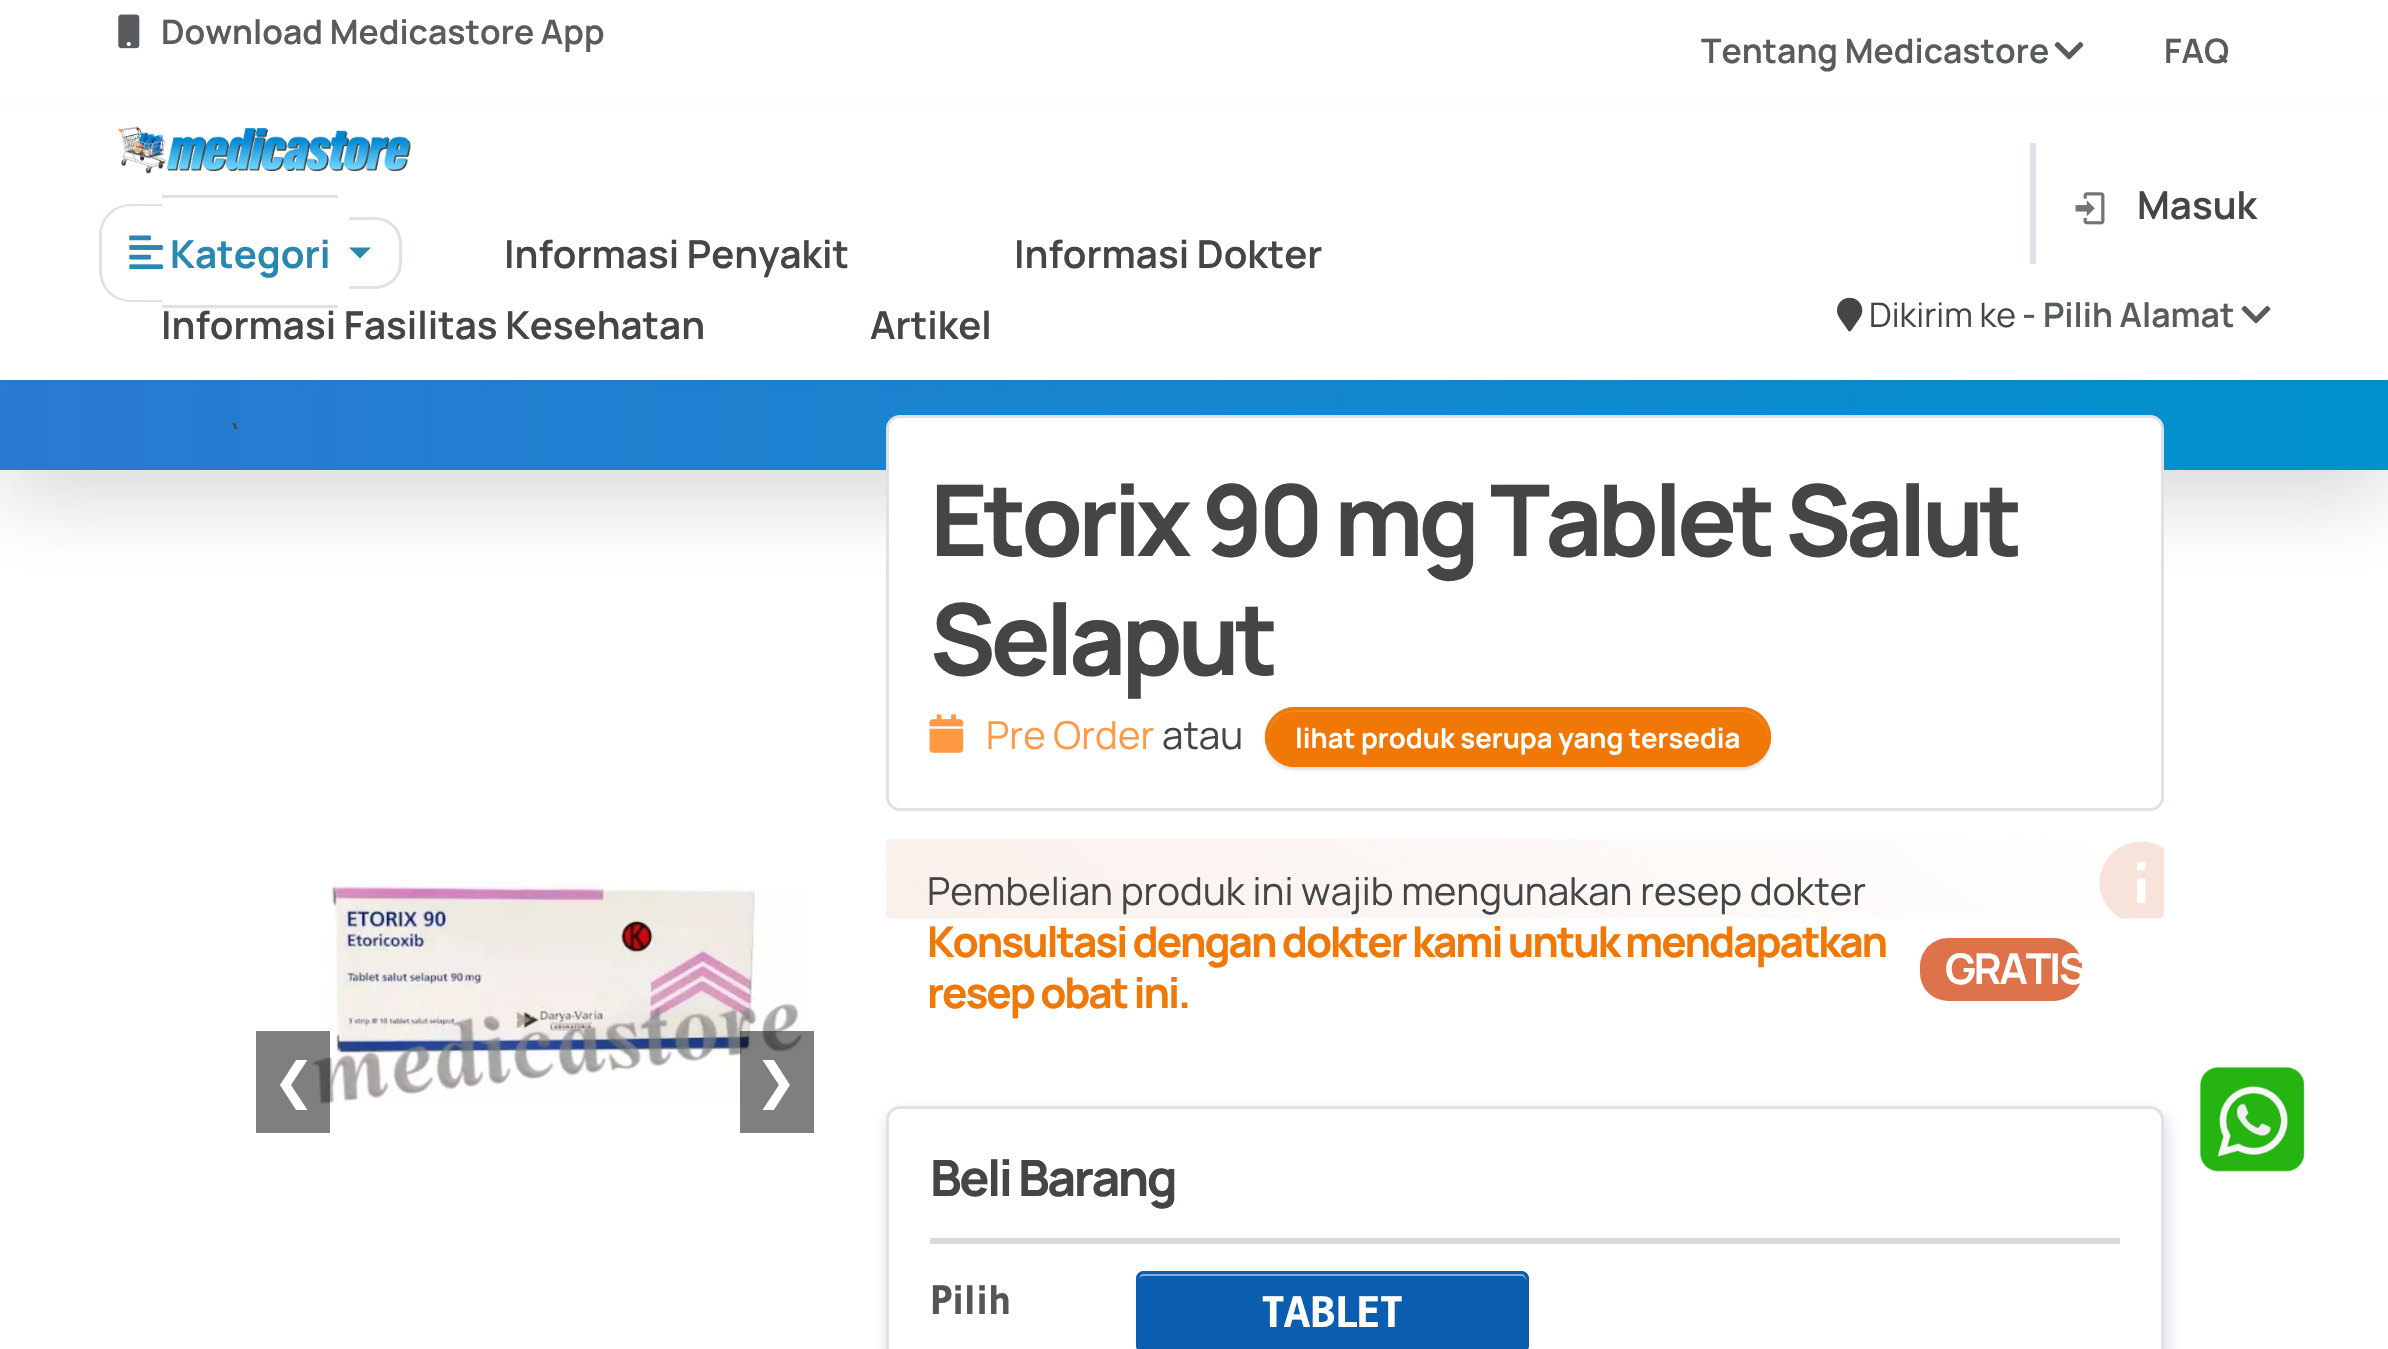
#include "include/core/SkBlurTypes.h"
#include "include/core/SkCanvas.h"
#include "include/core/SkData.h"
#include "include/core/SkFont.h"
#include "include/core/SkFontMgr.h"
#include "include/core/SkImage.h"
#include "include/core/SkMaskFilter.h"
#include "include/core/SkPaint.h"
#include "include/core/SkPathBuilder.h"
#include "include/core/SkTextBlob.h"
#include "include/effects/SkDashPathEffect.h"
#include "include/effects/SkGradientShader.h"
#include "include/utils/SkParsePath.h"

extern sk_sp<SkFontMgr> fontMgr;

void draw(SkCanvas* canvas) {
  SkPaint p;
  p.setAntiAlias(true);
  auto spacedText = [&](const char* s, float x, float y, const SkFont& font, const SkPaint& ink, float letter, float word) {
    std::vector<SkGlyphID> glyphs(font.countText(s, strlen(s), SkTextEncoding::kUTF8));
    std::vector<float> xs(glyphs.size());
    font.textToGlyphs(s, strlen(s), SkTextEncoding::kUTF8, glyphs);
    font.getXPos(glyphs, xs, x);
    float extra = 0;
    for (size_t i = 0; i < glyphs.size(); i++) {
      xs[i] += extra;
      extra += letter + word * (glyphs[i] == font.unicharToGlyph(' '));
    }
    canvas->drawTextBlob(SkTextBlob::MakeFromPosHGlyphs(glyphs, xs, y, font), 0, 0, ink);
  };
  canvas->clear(SK_ColorWHITE);
  canvas->drawImageRect(SkImages::DeferredFromEncodedData(SkData::MakeFromFileName("images/1.png")), SkRect::MakeLTRB(118, 14, 140, 49), SkSamplingOptions());
  canvas->drawImageRect(SkImages::DeferredFromEncodedData(SkData::MakeFromFileName("images/2.png")), SkRect::MakeLTRB(2054, 41, 2084, 60), SkSamplingOptions());
  p.setColor(SkColorSetARGB(46, 33, 37, 41));
  p.setMaskFilter(SkMaskFilter::MakeBlur(kNormal_SkBlurStyle, 41));
  canvas->drawRect(SkRect::MakeLTRB(0, 264, 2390, 498), p);
  p.setMaskFilter(nullptr);
  {
    const SkColor colors[] = {SkColorSetRGB(42, 121, 209), SkColorSetRGB(0, 146, 205)};
    const float stops[] = {0, 1};
    const SkPoint ends[] = {{0, 353}, {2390, 353}};
    p.setShader(SkGradientShader::MakeLinear(ends, colors, stops, 2, SkTileMode::kClamp));
    p.setAlpha(255);
  }
  canvas->drawRect(SkRect::MakeLTRB(0, 380, 2388, 470), p);
  p.setShader(nullptr);
  p.setColor(SkColorSetARGB(18, 33, 37, 41));
  p.setMaskFilter(SkMaskFilter::MakeBlur(kNormal_SkBlurStyle, 3.5f));
  canvas->drawRect(SkRect::MakeLTRB(0, 107, 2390, 382), p);
  p.setMaskFilter(nullptr);
  p.setColor(SK_ColorWHITE);
  canvas->drawRect(SkRect::MakeLTRB(0, 105, 2388, 380), p);
  canvas->drawImageRect(SkImages::DeferredFromEncodedData(SkData::MakeFromFileName("images/3.png")), SkRect::MakeLTRB(118, 126, 411, 174), SkSamplingOptions());
  p.setColor(SkColorSetRGB(222, 226, 230));
  canvas->drawPath(SkPathBuilder(SkPathFillType::kEvenOdd).moveTo(131, 204).lineTo(162, 204).lineTo(162, 302).lineTo(131, 302).cubicTo(113, 302, 99, 288, 99, 271).lineTo(99, 235).cubicTo(99, 218, 113, 204, 131, 204).close().moveTo(131, 206).lineTo(162, 206).lineTo(162, 300).lineTo(131, 300).cubicTo(115, 300, 102, 287, 102, 271).lineTo(102, 235).cubicTo(102, 219, 115, 206, 131, 206).close().detach(), p);
  canvas->drawRect(SkRect::MakeLTRB(162, 195, 338, 198), p);
  canvas->drawRect(SkRect::MakeLTRB(162, 305, 338, 308), p);
  canvas->drawPath(SkPathBuilder(SkPathFillType::kEvenOdd).moveTo(349, 217).lineTo(375, 217).cubicTo(390, 217, 402, 229, 402, 243).lineTo(402, 263).cubicTo(402, 277, 390, 289, 375, 289).lineTo(349, 289).close().moveTo(349, 220).lineTo(375, 220).cubicTo(388, 220, 399, 230, 399, 243).lineTo(399, 263).cubicTo(399, 276, 388, 286, 375, 286).lineTo(349, 286).close().detach(), p);
  canvas->drawImageRect(SkImages::DeferredFromEncodedData(SkData::MakeFromFileName("images/4.png")), SkRect::MakeLTRB(129, 235, 163, 270), SkSamplingOptions());
  p.setColor(SkColorSetRGB(42, 135, 175));
  canvas->drawPath(SkPathBuilder().moveTo(349, 247.5f).lineTo(371, 247.5f).lineTo(360, 258.5f).close().detach(), p);
  p.setColor(SkColorSetRGB(222, 226, 230));
  canvas->drawRect(SkRect::MakeLTRB(2030, 143, 2036, 264), p);
  canvas->drawImageRect(SkImages::DeferredFromEncodedData(SkData::MakeFromFileName("images/5.png")), SkRect::MakeLTRB(2075, 192, 2105, 225), SkSamplingOptions());
  canvas->drawImageRect(SkImages::DeferredFromEncodedData(SkData::MakeFromFileName("images/6.png")), SkRect::MakeLTRB(1837, 297, 1863, 332), SkSamplingOptions());
  canvas->drawImageRect(SkImages::DeferredFromEncodedData(SkData::MakeFromFileName("images/2.png")), SkRect::MakeLTRB(2241, 305, 2271, 324), SkSamplingOptions());
  canvas->drawImageRect(SkImages::DeferredFromEncodedData(SkData::MakeFromFileName("images/7.png")), SkRect::MakeLTRB(311, 881, 802, 1104), SkSamplingOptions());
  p.setColor(SkColorSetARGB(128, 0, 0, 0));
  canvas->drawRect(SkRect::MakeLTRB(256, 1031, 330, 1133), p);
  canvas->drawRect(SkRect::MakeLTRB(740, 1031, 814, 1133), p);
  p.setColor(SK_ColorWHITE);
  canvas->drawRoundRect(SkRect::MakeLTRB(887.5f, 416.5f, 2162.5f, 809.5f), 12.5f, 12.5f, p);
  p.setStyle(SkPaint::kStroke_Style);
  p.setStrokeWidth(3);
  p.setColor(SkColorSetRGB(222, 226, 230));
  canvas->drawRoundRect(SkRect::MakeLTRB(887.5f, 416.5f, 2162.5f, 809.5f), 12.5f, 12.5f, p);
  canvas->drawImageRect(SkImages::DeferredFromEncodedData(SkData::MakeFromFileName("images/8.png")), SkRect::MakeLTRB(929, 714, 964, 753), SkSamplingOptions());
  p.setStyle(SkPaint::kFill_Style);
  p.setColor(SkColorSetARGB(31, 0, 0, 0));
  p.setMaskFilter(SkMaskFilter::MakeBlur(kNormal_SkBlurStyle, 1.5f));
  canvas->drawRoundRect(SkRect::MakeLTRB(1265, 710, 1771, 770), 30, 30, p);
  p.setMaskFilter(nullptr);
  p.setColor(SkColorSetRGB(240, 120, 7));
  canvas->drawRoundRect(SkRect::MakeLTRB(1265, 707, 1771, 767), 30, 30, p);
  p.setColor(SkColorSetRGB(242, 137, 38));
  canvas->drawPath(SkPathBuilder().moveTo(1295, 712).lineTo(1741, 712).cubicTo(1756, 712, 1767, 724, 1768, 739).cubicTo(1769, 723, 1756, 710, 1740, 710).lineTo(1296, 710).cubicTo(1280, 710, 1267, 723, 1268, 739).cubicTo(1269, 724, 1280, 712, 1295, 712).close().detach(), p);
  p.setStyle(SkPaint::kStroke_Style);
  p.setColor(SkColorSetRGB(240, 120, 7));
  canvas->drawRoundRect(SkRect::MakeLTRB(1266.5f, 708.5f, 1769.5f, 765.5f), 28.5f, 28.5f, p);
  canvas->drawImageRect(SkImages::DeferredFromEncodedData(SkData::MakeFromFileName("images/9.png")), SkRect::MakeLTRB(886, 839, 2164, 919), SkSamplingOptions());
  p.setStyle(SkPaint::kFill_Style);
  p.setColor(SkColorSetRGB(222, 114, 74));
  canvas->drawRoundRect(SkRect::MakeLTRB(1920, 938, 2082, 1001), 28, 28, p);
  canvas->save();
  canvas->clipPath(SkPathBuilder(SkPathFillType::kEvenOdd).moveTo(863, 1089).lineTo(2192, 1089).lineTo(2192, 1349).lineTo(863, 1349).close().moveTo(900, 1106).lineTo(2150, 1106).cubicTo(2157.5f, 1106, 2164, 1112.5f, 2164, 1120).lineTo(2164, 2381).cubicTo(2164, 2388.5f, 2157.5f, 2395, 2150, 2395).lineTo(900, 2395).cubicTo(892.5f, 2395, 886, 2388.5f, 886, 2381).lineTo(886, 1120).cubicTo(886, 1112.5f, 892.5f, 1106, 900, 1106).close().detach(), true);
  p.setColor(SkColorSetARGB(51, 51, 68, 85));
  p.setMaskFilter(SkMaskFilter::MakeBlur(kNormal_SkBlurStyle, 8));
  canvas->drawRoundRect(SkRect::MakeLTRB(888, 1114, 2167, 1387), 14, 14, p);
  p.setMaskFilter(nullptr);
  canvas->restore();
  p.setStyle(SkPaint::kStroke_Style);
  p.setColor(SkColorSetRGB(222, 226, 230));
  canvas->drawRoundRect(SkRect::MakeLTRB(887.5f, 1107.5f, 2162.5f, 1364.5f), 12.5f, 12.5f, p);
  p.setStyle(SkPaint::kFill_Style);
  p.setColor(SkColorSetRGB(216, 217, 216));
  canvas->drawRect(SkRect::MakeLTRB(930, 1238, 2120, 1244), p);
  p.setColor(SkColorSetRGB(11, 94, 175));
  canvas->drawRoundRect(SkRect::MakeLTRB(1136, 1271, 1529, 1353), 8, 8, p);
  p.setColor(SkColorSetRGB(133, 175, 215));
  canvas->drawPath(SkPathBuilder().moveTo(1144, 1276).lineTo(1521, 1276).cubicTo(1524, 1276, 1526, 1278, 1526, 1282).lineTo(1526, 1279).cubicTo(1526, 1276, 1523, 1273, 1520, 1273).lineTo(1145, 1273).cubicTo(1142, 1273, 1139, 1275, 1139, 1278).cubicTo(1140, 1277, 1142, 1276, 1144, 1276).close().detach(), p);
  p.setStyle(SkPaint::kStroke_Style);
  p.setColor(SkColorSetRGB(11, 94, 175));
  canvas->drawRoundRect(SkRect::MakeLTRB(1137.5f, 1272.5f, 1527.5f, 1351.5f), 6.5f, 6.5f, p);
  canvas->drawImageRect(SkImages::DeferredFromEncodedData(SkData::MakeFromFileName("images/10.png")), SkRect::MakeLTRB(2200, 1066, 2305, 1172), SkSamplingOptions());
  SkFont font1(fontMgr->matchFamilyStyle("Manrope", SkFontStyle(600, SkFontStyle::kNormal_Width, SkFontStyle::kUpright_Slant)), 33.75f);
  font1.setSubpixel(true);
  p.setStyle(SkPaint::kFill_Style);
  p.setColor(SkColorSetRGB(89, 92, 95));
  canvas->drawString("Download Medicastore App", 161, 44, font1, p);
  canvas->drawString("Tentang Medicastore", 1701, 63, font1, p);
  canvas->drawString("FAQ", 2164, 63, font1, p);
  SkFont font2(fontMgr->matchFamilyStyle("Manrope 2", SkFontStyle::Bold()), 38.5f);
  font2.setSubpixel(true);
  p.setColor(SkColorSetRGB(42, 135, 175));
  canvas->drawString("Kategori", 170, 268, font2, p);
  SkFont font3(fontMgr->matchFamilyStyle("Manrope", SkFontStyle(600, SkFontStyle::kNormal_Width, SkFontStyle::kUpright_Slant)), 38.5f);
  font3.setSubpixel(true);
  p.setColor(SkColorSetRGB(68, 69, 70));
  canvas->drawString("Informasi Penyakit", 504, 268, font3, p);
  canvas->drawString("Informasi Dokter", 1014, 268, font3, p);
  canvas->drawString("Informasi Fasilitas Kesehatan", 161, 339, font3, p);
  canvas->drawString("Artikel", 870, 339, font3, p);
  canvas->drawString("Masuk", 2137, 219, font3, p);
  SkFont font4(fontMgr->matchFamilyStyle("Manrope", SkFontStyle::Normal()), 33.75f);
  font4.setSubpixel(true);
  canvas->drawString("Dikirim ke", 1869, 327, font4, p);
  p.setColor(SkColorSetRGB(89, 92, 95));
  canvas->drawString("- Pilih Alamat", 2022, 327, font1, p);
  SkFont font5(fontMgr->matchFamilyStyle("Manrope", SkFontStyle::Normal()), 38.5f);
  font5.setSubpixel(true);
  p.setColor(SkColorSetRGB(68, 69, 70));
  canvas->drawString("`", 226, 460, font5, p);
  SkFont font6(fontMgr->matchFamilyStyle("DejaVu Sans", SkFontStyle::Normal()), 50);
  font6.setSubpixel(true);
  p.setColor(SK_ColorWHITE);
  canvas->drawString("❮", 273, 1098, font6, p);
  canvas->drawString("❯", 755, 1098, font6, p);
  SkFont font7(fontMgr->matchFamilyStyle("Manrope", SkFontStyle::Bold()), 99);
  font7.setSubpixel(true);
  p.setColor(SkColorSetRGB(68, 69, 70));
  spacedText("Etorix 90 mg Tablet Salut", 930, 556, font7, p, -4.95f, 0);
  spacedText("Selaput", 930, 675, font7, p, -4.95f, 0);
  p.setColor(SkColorSetRGB(255, 154, 68));
  canvas->drawString("Pre Order", 986, 749, font5, p);
  p.setColor(SkColorSetRGB(68, 69, 70));
  canvas->drawString("atau", 1162, 749, font5, p);
  SkFont font8(fontMgr->matchFamilyStyle("Manrope 2", SkFontStyle::Bold()), 27.5f);
  font8.setSubpixel(true);
  p.setColor(SK_ColorWHITE);
  canvas->drawString("lihat produk serupa yang tersedia", 1295, 748, font8, p);
  p.setColor(SkColorSetRGB(68, 69, 70));
  canvas->drawString("Pembelian produk ini wajib mengunakan resep dokter", 927, 905, font5, p);
  SkFont font9(fontMgr->matchFamilyStyle("Manrope", SkFontStyle::Bold()), 42.25f);
  font9.setSubpixel(true);
  p.setColor(SkColorSetRGB(240, 120, 7));
  spacedText("Konsultasi dengan dokter kami untuk mendapatkan", 927, 957, font9, p, -2.1f, 0);
  SkFont font10(fontMgr->matchFamilyStyle("Manrope 2", SkFontStyle::Bold()), 42.25f);
  font10.setSubpixel(true);
  p.setColor(SK_ColorWHITE);
  spacedText("GRATIS", 1945, 984, font10, p, -2.1f, 0);
  p.setColor(SkColorSetRGB(240, 120, 7));
  spacedText("resep obat ini.", 927, 1008, font9, p, -2.1f, 0);
  SkFont font11(fontMgr->matchFamilyStyle("Manrope", SkFontStyle::Bold()), 50);
  font11.setSubpixel(true);
  p.setColor(SkColorSetRGB(68, 69, 70));
  spacedText("Beli Barang", 930, 1196, font11, p, -2.5f, 0);
  SkFont font12(fontMgr->matchFamilyStyle("Gudea", SkFontStyle::Bold()), 41);
  font12.setSubpixel(true);
  p.setColor(SkColorSetRGB(85, 85, 85));
  canvas->drawString("Pilih", 930, 1314, font12, p);
  SkFont font13(fontMgr->matchFamilyStyle("Gudea", SkFontStyle::Bold()), 44);
  font13.setSubpixel(true);
  p.setColor(SK_ColorWHITE);
  canvas->drawString("TABLET", 1262, 1327, font13, p);
}
